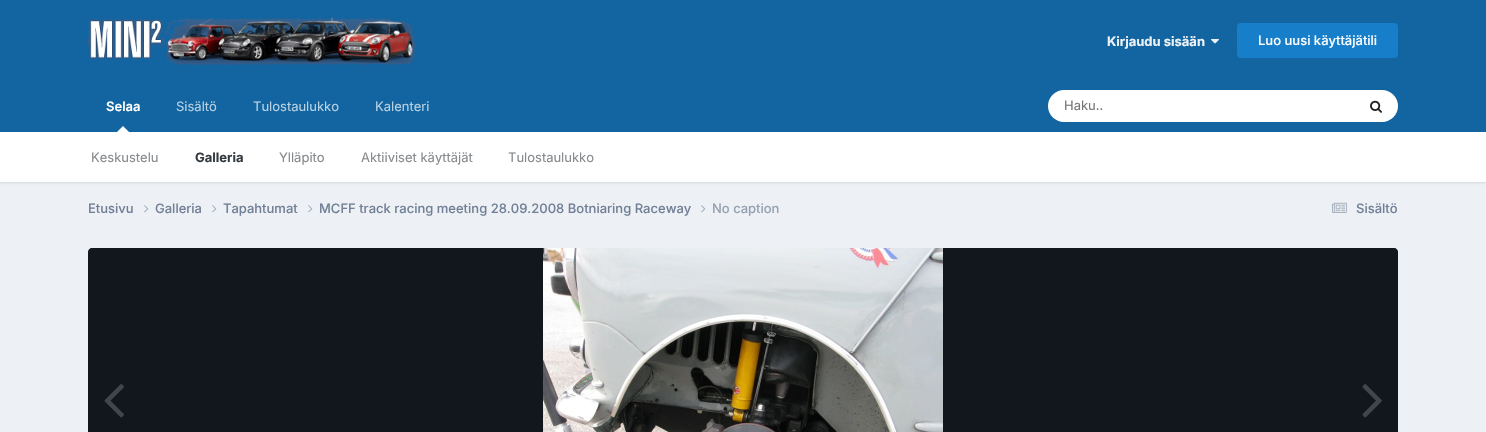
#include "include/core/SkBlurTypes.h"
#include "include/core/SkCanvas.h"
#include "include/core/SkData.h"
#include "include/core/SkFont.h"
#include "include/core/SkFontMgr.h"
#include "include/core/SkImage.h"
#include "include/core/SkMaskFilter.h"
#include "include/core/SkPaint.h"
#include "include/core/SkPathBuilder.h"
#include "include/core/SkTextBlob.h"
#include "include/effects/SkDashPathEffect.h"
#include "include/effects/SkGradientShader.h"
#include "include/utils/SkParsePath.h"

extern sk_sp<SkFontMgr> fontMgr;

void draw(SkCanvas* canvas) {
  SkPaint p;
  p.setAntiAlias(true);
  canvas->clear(SkColorSetRGB(237, 240, 244));
  p.setColor(SkColorSetRGB(18, 101, 161));
  canvas->drawRect(SkRect::MakeLTRB(0, 0, 1486, 132), p);
  canvas->drawImageRect(SkImages::DeferredFromEncodedData(SkData::MakeFromFileName("images/1.png")), SkRect::MakeLTRB(88, 17, 416, 65), SkSamplingOptions());
  canvas->drawImageRect(SkImages::DeferredFromEncodedData(SkData::MakeFromFileName("images/2.png")), SkRect::MakeLTRB(1211, 39, 1219, 44), SkSamplingOptions());
  p.setColor(SkColorSetRGB(23, 126, 201));
  canvas->drawRoundRect(SkRect::MakeLTRB(1237, 23, 1398, 58), 4, 4, p);
  p.setColor(SkColorSetARGB(26, 0, 0, 0));
  p.setMaskFilter(SkMaskFilter::MakeBlur(kNormal_SkBlurStyle, 1));
  canvas->drawRect(SkRect::MakeLTRB(0, 133, 1486, 183), p);
  p.setMaskFilter(nullptr);
  p.setColor(SK_ColorWHITE);
  canvas->drawPath(SkPathBuilder().moveTo(129, 132).lineTo(117, 132).lineTo(123, 126).close().detach(), p);
  canvas->drawRoundRect(SkRect::MakeLTRB(1048, 90, 1398, 122), 16, 16, p);
  canvas->drawImageRect(SkImages::DeferredFromEncodedData(SkData::MakeFromFileName("images/3.png")), SkRect::MakeLTRB(1370, 100, 1382, 113), SkSamplingOptions());
  canvas->drawRect(SkRect::MakeLTRB(0, 132, 1486, 182), p);
  canvas->drawImageRect(SkImages::DeferredFromEncodedData(SkData::MakeFromFileName("images/4.png")), SkRect::MakeLTRB(144, 205, 149, 213), SkSamplingOptions());
  canvas->drawImageRect(SkImages::DeferredFromEncodedData(SkData::MakeFromFileName("images/4.png")), SkRect::MakeLTRB(212, 205, 217, 213), SkSamplingOptions());
  canvas->drawImageRect(SkImages::DeferredFromEncodedData(SkData::MakeFromFileName("images/4.png")), SkRect::MakeLTRB(308, 205, 313, 213), SkSamplingOptions());
  canvas->drawImageRect(SkImages::DeferredFromEncodedData(SkData::MakeFromFileName("images/4.png")), SkRect::MakeLTRB(701, 205, 706, 213), SkSamplingOptions());
  canvas->drawImageRect(SkImages::DeferredFromEncodedData(SkData::MakeFromFileName("images/5.png")), SkRect::MakeLTRB(1332, 202, 1347, 213), SkSamplingOptions());
  p.setColor(SkColorSetRGB(45, 55, 72));
  canvas->drawPath(SkPathBuilder().moveTo(92, 248).lineTo(1394, 248).cubicTo(1396, 248, 1398, 250, 1398, 252).lineTo(1398, 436).lineTo(88, 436).lineTo(88, 252).cubicTo(88, 250, 90, 248, 92, 248).close().detach(), p);
  p.setColor(SkColorSetARGB(153, 0, 0, 0));
  canvas->drawPath(SkPathBuilder().moveTo(92, 248).lineTo(1394, 248).cubicTo(1396, 248, 1398, 250, 1398, 252).lineTo(1398, 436).lineTo(88, 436).lineTo(88, 252).cubicTo(88, 250, 90, 248, 92, 248).close().detach(), p);
  canvas->drawImageRect(SkImages::DeferredFromEncodedData(SkData::MakeFromFileName("images/6.png")), SkRect::MakeLTRB(543, 248, 943, 432), SkSamplingOptions());
  canvas->drawImageRect(SkImages::DeferredFromEncodedData(SkData::MakeFromFileName("images/7.png")), SkRect::MakeLTRB(104, 384, 124, 418), SkSamplingOptions());
  canvas->drawImageRect(SkImages::DeferredFromEncodedData(SkData::MakeFromFileName("images/8.png")), SkRect::MakeLTRB(1362, 384, 1382, 418), SkSamplingOptions());
  SkFont font1(fontMgr->matchFamilyStyle("Inter", SkFontStyle::Bold()), 13);
  font1.setSubpixel(true);
  p.setColor(SkColorSetRGB(237, 242, 247));
  canvas->drawString("Kirjaudu sisään", 1107, 46, font1, p);
  SkFont font2(fontMgr->matchFamilyStyle("Inter", SkFontStyle(500, SkFontStyle::kNormal_Width, SkFontStyle::kUpright_Slant)), 13);
  font2.setSubpixel(true);
  p.setColor(SK_ColorWHITE);
  canvas->drawString("Luo uusi käyttäjätili", 1258, 45, font2, p);
  SkFont font3(fontMgr->matchFamilyStyle("Inter", SkFontStyle(600, SkFontStyle::kNormal_Width, SkFontStyle::kUpright_Slant)), 13);
  font3.setSubpixel(true);
  canvas->drawString("Selaa", 106, 111, font3, p);
  SkFont font4(fontMgr->matchFamilyStyle("Inter", SkFontStyle::Normal()), 13);
  font4.setSubpixel(true);
  p.setColor(SkColorSetRGB(134, 138, 141));
  canvas->drawString("Keskustelu", 91, 162, font4, p);
  p.setColor(SkColorSetRGB(53, 60, 65));
  canvas->drawString("Galleria", 195, 162, font1, p);
  p.setColor(SkColorSetRGB(134, 138, 141));
  canvas->drawString("Ylläpito", 279, 162, font4, p);
  canvas->drawString("Aktiiviset käyttäjät", 361, 162, font4, p);
  canvas->drawString("Tulostaulukko", 508, 162, font4, p);
  p.setColor(SkColorSetRGB(184, 209, 227));
  canvas->drawString("Sisältö", 176, 111, font4, p);
  canvas->drawString("Tulostaulukko", 253, 111, font4, p);
  canvas->drawString("Kalenteri", 375, 111, font4, p);
  p.setColor(SkColorSetRGB(117, 117, 117));
  canvas->drawString("Haku..", 1064, 110, font4, p);
  p.setColor(SkColorSetRGB(113, 128, 150));
  canvas->drawString("Etusivu", 88, 213, font2, p);
  canvas->drawString("Galleria", 155, 213, font2, p);
  canvas->drawString("Tapahtumat", 223, 213, font2, p);
  canvas->drawString("MCFF track racing meeting 28.09.2008 Botniaring Raceway", 319, 213, font2, p);
  p.setColor(SkColorSetRGB(150, 162, 178));
  canvas->drawString("No caption", 712, 213, font2, p);
  p.setColor(SkColorSetRGB(113, 128, 150));
  canvas->drawString("Sisältö", 1356, 213, font2, p);
}
